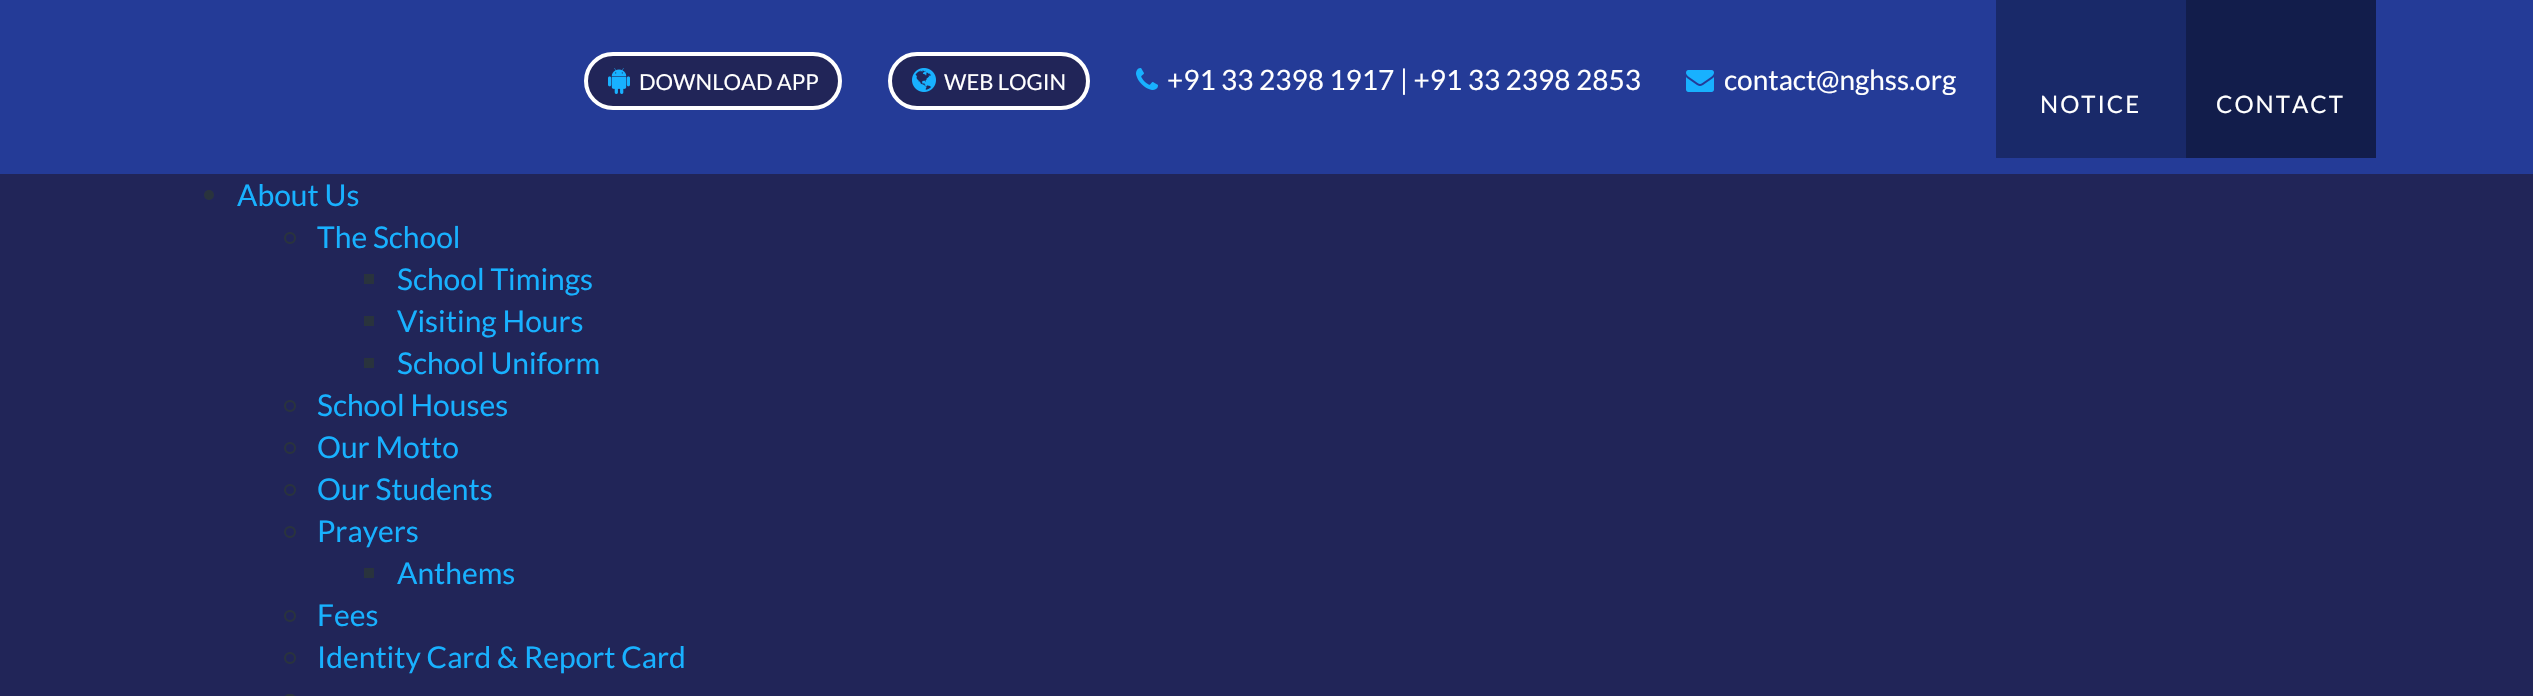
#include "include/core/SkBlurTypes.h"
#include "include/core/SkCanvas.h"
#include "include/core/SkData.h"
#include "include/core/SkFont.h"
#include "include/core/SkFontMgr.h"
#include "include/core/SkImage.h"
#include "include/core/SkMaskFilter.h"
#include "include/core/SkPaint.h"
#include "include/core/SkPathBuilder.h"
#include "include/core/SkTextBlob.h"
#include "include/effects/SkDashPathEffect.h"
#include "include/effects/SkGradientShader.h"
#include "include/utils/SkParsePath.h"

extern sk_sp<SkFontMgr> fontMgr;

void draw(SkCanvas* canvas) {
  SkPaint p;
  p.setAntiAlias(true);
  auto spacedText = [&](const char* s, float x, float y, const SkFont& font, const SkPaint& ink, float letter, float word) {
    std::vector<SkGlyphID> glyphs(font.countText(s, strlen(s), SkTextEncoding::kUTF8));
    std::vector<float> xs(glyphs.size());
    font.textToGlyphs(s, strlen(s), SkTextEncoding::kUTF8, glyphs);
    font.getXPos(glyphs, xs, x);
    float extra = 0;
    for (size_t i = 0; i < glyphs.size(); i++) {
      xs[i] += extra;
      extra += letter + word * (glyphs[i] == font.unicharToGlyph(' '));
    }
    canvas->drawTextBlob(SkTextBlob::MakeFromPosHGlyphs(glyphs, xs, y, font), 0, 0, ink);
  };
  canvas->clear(SkColorSetRGB(36, 59, 151));
  p.setColor(SkColorSetRGB(33, 37, 88));
  canvas->drawRoundRect(SkRect::MakeLTRB(586, 54, 840, 108), 27, 27, p);
  p.setStyle(SkPaint::kStroke_Style);
  p.setStrokeWidth(4);
  p.setColor(SK_ColorWHITE);
  canvas->drawRoundRect(SkRect::MakeLTRB(586, 54, 840, 108), 27, 27, p);
  canvas->drawImageRect(SkImages::DeferredFromEncodedData(SkData::MakeFromFileName("images/1.png")), SkRect::MakeLTRB(608, 68, 630, 94), SkSamplingOptions());
  p.setStyle(SkPaint::kFill_Style);
  p.setColor(SkColorSetRGB(33, 37, 88));
  canvas->drawRoundRect(SkRect::MakeLTRB(890, 54, 1088, 108), 27, 27, p);
  p.setStyle(SkPaint::kStroke_Style);
  p.setColor(SK_ColorWHITE);
  canvas->drawRoundRect(SkRect::MakeLTRB(890, 54, 1088, 108), 27, 27, p);
  canvas->drawImageRect(SkImages::DeferredFromEncodedData(SkData::MakeFromFileName("images/2.png")), SkRect::MakeLTRB(912, 68, 936, 92), SkSamplingOptions());
  canvas->drawImageRect(SkImages::DeferredFromEncodedData(SkData::MakeFromFileName("images/3.png")), SkRect::MakeLTRB(1136, 68, 1158, 90), SkSamplingOptions());
  canvas->drawImageRect(SkImages::DeferredFromEncodedData(SkData::MakeFromFileName("images/4.png")), SkRect::MakeLTRB(1686, 70, 1714, 92), SkSamplingOptions());
  p.setStyle(SkPaint::kFill_Style);
  p.setColor(SkColorSetRGB(25, 41, 105));
  canvas->drawRect(SkRect::MakeLTRB(1996, 0, 2186, 158), p);
  p.setColor(SkColorSetRGB(18, 29, 75));
  canvas->drawRect(SkRect::MakeLTRB(2186, 0, 2376, 158), p);
  p.setColor(SkColorSetRGB(33, 37, 88));
  canvas->drawRect(SkRect::MakeLTRB(0, 174, 2533, 696), p);
  p.setColor(SkColorSetRGB(41, 51, 61));
  canvas->drawCircle(209, 195, 5, p);
  p.setStyle(SkPaint::kStroke_Style);
  p.setStrokeWidth(2);
  canvas->drawCircle(290, 238, 5, p);
  p.setStyle(SkPaint::kFill_Style);
  canvas->drawRect(SkRect::MakeLTRB(364, 274, 374, 284), p);
  canvas->drawRect(SkRect::MakeLTRB(364, 316, 374, 326), p);
  canvas->drawRect(SkRect::MakeLTRB(364, 358, 374, 368), p);
  p.setStyle(SkPaint::kStroke_Style);
  canvas->drawCircle(290, 406, 5, p);
  canvas->drawCircle(290, 448, 5, p);
  canvas->drawCircle(290, 490, 5, p);
  canvas->drawCircle(290, 532, 5, p);
  p.setStyle(SkPaint::kFill_Style);
  canvas->drawRect(SkRect::MakeLTRB(364, 568, 374, 578), p);
  p.setStyle(SkPaint::kStroke_Style);
  canvas->drawCircle(290, 616, 5, p);
  canvas->drawCircle(290, 658, 5, p);
  canvas->drawRoundRect(SkRect::MakeLTRB(285, 695, 295, 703), 5, 5, p);
  SkFont font1(fontMgr->matchFamilyStyle("Lato", SkFontStyle::Normal()), 22);
  font1.setSubpixel(true);
  p.setStyle(SkPaint::kFill_Style);
  p.setColor(SK_ColorWHITE);
  canvas->drawString("DOWNLOAD APP", 639, 90, font1, p);
  canvas->drawString("WEB LOGIN", 944, 90, font1, p);
  SkFont font2(fontMgr->matchFamilyStyle("Lato", SkFontStyle::Normal()), 28);
  font2.setSubpixel(true);
  canvas->drawString("+91 33 2398 1917 | +91 33 2398 2853", 1167, 90, font2, p);
  canvas->drawString("contact@nghss.org", 1724, 90, font2, p);
  SkFont font3(fontMgr->matchFamilyStyle("Lato", SkFontStyle::Normal()), 24);
  font3.setSubpixel(true);
  spacedText("NOTICE", 2040, 113, font3, p, 2, 0);
  spacedText("CONTACT", 2216, 113, font3, p, 2, 0);
  SkFont font4(fontMgr->matchFamilyStyle("Lato", SkFontStyle::Normal()), 30);
  font4.setSubpixel(true);
  p.setColor(SkColorSetRGB(24, 177, 255));
  canvas->drawString("About Us", 237, 206, font4, p);
  canvas->drawString("The School", 317, 248, font4, p);
  canvas->drawString("School Timings", 397, 290, font4, p);
  canvas->drawString("Visiting Hours", 397, 332, font4, p);
  canvas->drawString("School Uniform", 397, 374, font4, p);
  canvas->drawString("School Houses", 317, 416, font4, p);
  canvas->drawString("Our Motto", 317, 458, font4, p);
  canvas->drawString("Our Students", 317, 500, font4, p);
  canvas->drawString("Prayers", 317, 542, font4, p);
  canvas->drawString("Anthems", 397, 584, font4, p);
  canvas->drawString("Fees", 317, 626, font4, p);
  canvas->drawString("Identity Card & Report Card", 317, 668, font4, p);
}
